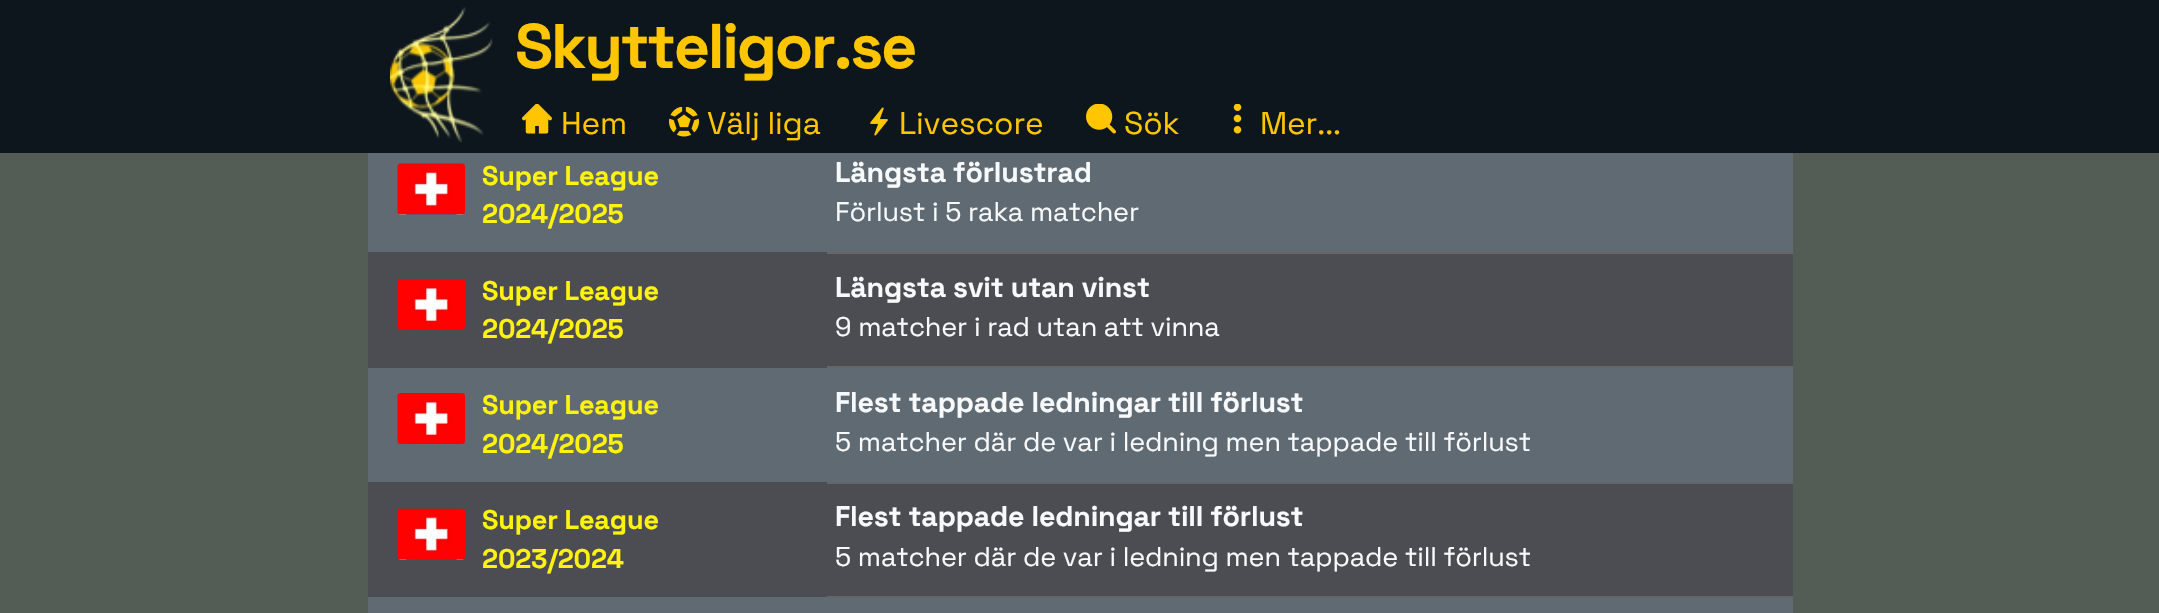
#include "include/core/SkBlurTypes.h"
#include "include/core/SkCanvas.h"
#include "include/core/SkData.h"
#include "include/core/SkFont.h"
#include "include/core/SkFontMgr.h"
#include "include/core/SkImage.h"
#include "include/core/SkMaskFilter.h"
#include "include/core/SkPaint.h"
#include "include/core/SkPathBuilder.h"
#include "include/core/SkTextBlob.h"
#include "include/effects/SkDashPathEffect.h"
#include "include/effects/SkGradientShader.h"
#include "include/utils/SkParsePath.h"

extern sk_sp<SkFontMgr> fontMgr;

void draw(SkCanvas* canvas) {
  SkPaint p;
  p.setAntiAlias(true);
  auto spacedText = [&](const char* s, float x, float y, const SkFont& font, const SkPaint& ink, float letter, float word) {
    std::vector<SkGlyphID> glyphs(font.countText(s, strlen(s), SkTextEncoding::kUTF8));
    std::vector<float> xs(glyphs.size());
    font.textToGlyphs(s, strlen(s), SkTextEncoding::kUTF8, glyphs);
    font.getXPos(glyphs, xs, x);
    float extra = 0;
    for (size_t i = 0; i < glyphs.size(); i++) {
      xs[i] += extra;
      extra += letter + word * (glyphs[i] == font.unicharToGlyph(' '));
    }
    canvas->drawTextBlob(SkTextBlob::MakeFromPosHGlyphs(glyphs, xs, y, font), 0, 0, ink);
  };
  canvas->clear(SkColorSetRGB(83, 92, 85));
  p.setColor(SkColorSetRGB(13, 22, 29));
  canvas->drawRect(SkRect::MakeLTRB(0, 0, 2159, 153), p);
  canvas->drawImageRect(SkImages::DeferredFromEncodedData(SkData::MakeFromFileName("images/1.png")), SkRect::MakeLTRB(390, 7, 493, 143), SkSamplingOptions());
  canvas->drawImageRect(SkImages::DeferredFromEncodedData(SkData::MakeFromFileName("images/2.png")), SkRect::MakeLTRB(522, 104, 552, 134), SkSamplingOptions());
  canvas->drawImageRect(SkImages::DeferredFromEncodedData(SkData::MakeFromFileName("images/3.png")), SkRect::MakeLTRB(669, 107, 699, 137), SkSamplingOptions());
  canvas->drawImageRect(SkImages::DeferredFromEncodedData(SkData::MakeFromFileName("images/4.png")), SkRect::MakeLTRB(870, 107, 888, 136), SkSamplingOptions());
  canvas->drawImageRect(SkImages::DeferredFromEncodedData(SkData::MakeFromFileName("images/5.png")), SkRect::MakeLTRB(1086, 104, 1116, 134), SkSamplingOptions());
  canvas->drawImageRect(SkImages::DeferredFromEncodedData(SkData::MakeFromFileName("images/6.png")), SkRect::MakeLTRB(1233, 104, 1242, 134), SkSamplingOptions());
  p.setColor(SkColorSetRGB(95, 106, 114));
  canvas->drawRect(SkRect::MakeLTRB(368, 153, 1793, 252), p);
  canvas->drawImageRect(SkImages::DeferredFromEncodedData(SkData::MakeFromFileName("images/7.png")), SkRect::MakeLTRB(397, 163, 465, 215), SkSamplingOptions());
  p.setColor(SkColorSetRGB(102, 102, 102));
  canvas->drawRect(SkRect::MakeLTRB(825, 252, 1793, 254), p);
  canvas->drawRect(SkRect::MakeLTRB(825, 366, 1793, 368), p);
  p.setColor(SkColorSetRGB(75, 77, 82));
  canvas->drawRect(SkRect::MakeLTRB(368, 252, 827, 368), p);
  canvas->drawImageRect(SkImages::DeferredFromEncodedData(SkData::MakeFromFileName("images/8.png")), SkRect::MakeLTRB(397, 279, 465, 330), SkSamplingOptions());
  canvas->drawRect(SkRect::MakeLTRB(827, 254, 1793, 366), p);
  p.setColor(SkColorSetRGB(95, 106, 114));
  canvas->drawRect(SkRect::MakeLTRB(368, 368, 1793, 482), p);
  canvas->drawImageRect(SkImages::DeferredFromEncodedData(SkData::MakeFromFileName("images/9.png")), SkRect::MakeLTRB(397, 393, 465, 444), SkSamplingOptions());
  p.setColor(SkColorSetRGB(102, 102, 102));
  canvas->drawRect(SkRect::MakeLTRB(825, 482, 1793, 484), p);
  canvas->drawRect(SkRect::MakeLTRB(825, 596, 1793, 598), p);
  p.setColor(SkColorSetRGB(75, 77, 82));
  canvas->drawRect(SkRect::MakeLTRB(368, 482, 827, 597), p);
  canvas->drawImageRect(SkImages::DeferredFromEncodedData(SkData::MakeFromFileName("images/10.png")), SkRect::MakeLTRB(397, 508, 465, 560), SkSamplingOptions());
  canvas->drawRect(SkRect::MakeLTRB(827, 484, 1793, 596), p);
  p.setColor(SkColorSetRGB(95, 106, 114));
  canvas->drawRect(SkRect::MakeLTRB(368, 597, 827, 613), p);
  canvas->drawRect(SkRect::MakeLTRB(827, 598, 1793, 613), p);
  SkFont font1(fontMgr->matchFamilyStyle("Space Grotesk", SkFontStyle::Bold()), 63);
  font1.setSubpixel(true);
  p.setColor(SkColorSetRGB(255, 198, 0));
  spacedText("Skytteligor.se", 515, 68, font1, p, -2.25f, 0);
  SkFont font2(fontMgr->matchFamilyStyle("Space Grotesk", SkFontStyle::Normal()), 31.5f);
  font2.setSubpixel(true);
  spacedText("Hem", 561, 134, font2, p, -0.15f, 0);
  spacedText("Välj liga", 707, 134, font2, p, -0.15f, 0);
  spacedText("Livescore", 899, 134, font2, p, -0.15f, 0);
  spacedText("Sök", 1124, 134, font2, p, -0.15f, 0);
  spacedText("Mer...", 1260, 134, font2, p, -0.15f, 0);
  SkFont font3(fontMgr->matchFamilyStyle("Space Grotesk", SkFontStyle::Bold()), 27);
  font3.setSubpixel(true);
  p.setColor(SkColorSetRGB(255, 242, 14));
  spacedText("Super League", 482, 185, font3, p, -0.15f, 0);
  spacedText("2024/2025", 482, 223, font3, p, -0.15f, 0);
  SkFont font4(fontMgr->matchFamilyStyle("Space Grotesk", SkFontStyle::Bold()), 28.5f);
  font4.setSubpixel(true);
  p.setColor(SkColorSetRGB(247, 249, 251));
  spacedText("Längsta förlustrad", 835, 182, font4, p, -0.15f, 0);
  SkFont font5(fontMgr->matchFamilyStyle("Space Grotesk", SkFontStyle::Normal()), 27);
  font5.setSubpixel(true);
  spacedText("Förlust i 5 raka matcher", 835, 221, font5, p, -0.15f, 0);
  p.setColor(SkColorSetRGB(255, 242, 14));
  spacedText("Super League", 482, 300, font3, p, -0.15f, 0);
  spacedText("2024/2025", 482, 338, font3, p, -0.15f, 0);
  p.setColor(SkColorSetRGB(247, 249, 251));
  spacedText("Längsta svit utan vinst", 835, 297, font4, p, -0.15f, 0);
  spacedText("9 matcher i rad utan att vinna", 835, 336, font5, p, -0.15f, 0);
  p.setColor(SkColorSetRGB(255, 242, 14));
  spacedText("Super League", 482, 414, font3, p, -0.15f, 0);
  spacedText("2024/2025", 482, 453, font3, p, -0.15f, 0);
  p.setColor(SkColorSetRGB(247, 249, 251));
  spacedText("Flest tappade ledningar till förlust", 835, 412, font4, p, -0.15f, 0);
  spacedText("5 matcher där de var i ledning men tappade till förlust", 835, 451, font5, p, -0.15f, 0);
  p.setColor(SkColorSetRGB(255, 242, 14));
  spacedText("Super League", 482, 529, font3, p, -0.15f, 0);
  spacedText("2023/2024", 482, 568, font3, p, -0.15f, 0);
  p.setColor(SkColorSetRGB(247, 249, 251));
  spacedText("Flest tappade ledningar till förlust", 835, 526, font4, p, -0.15f, 0);
  spacedText("5 matcher där de var i ledning men tappade till förlust", 835, 566, font5, p, -0.15f, 0);
}
